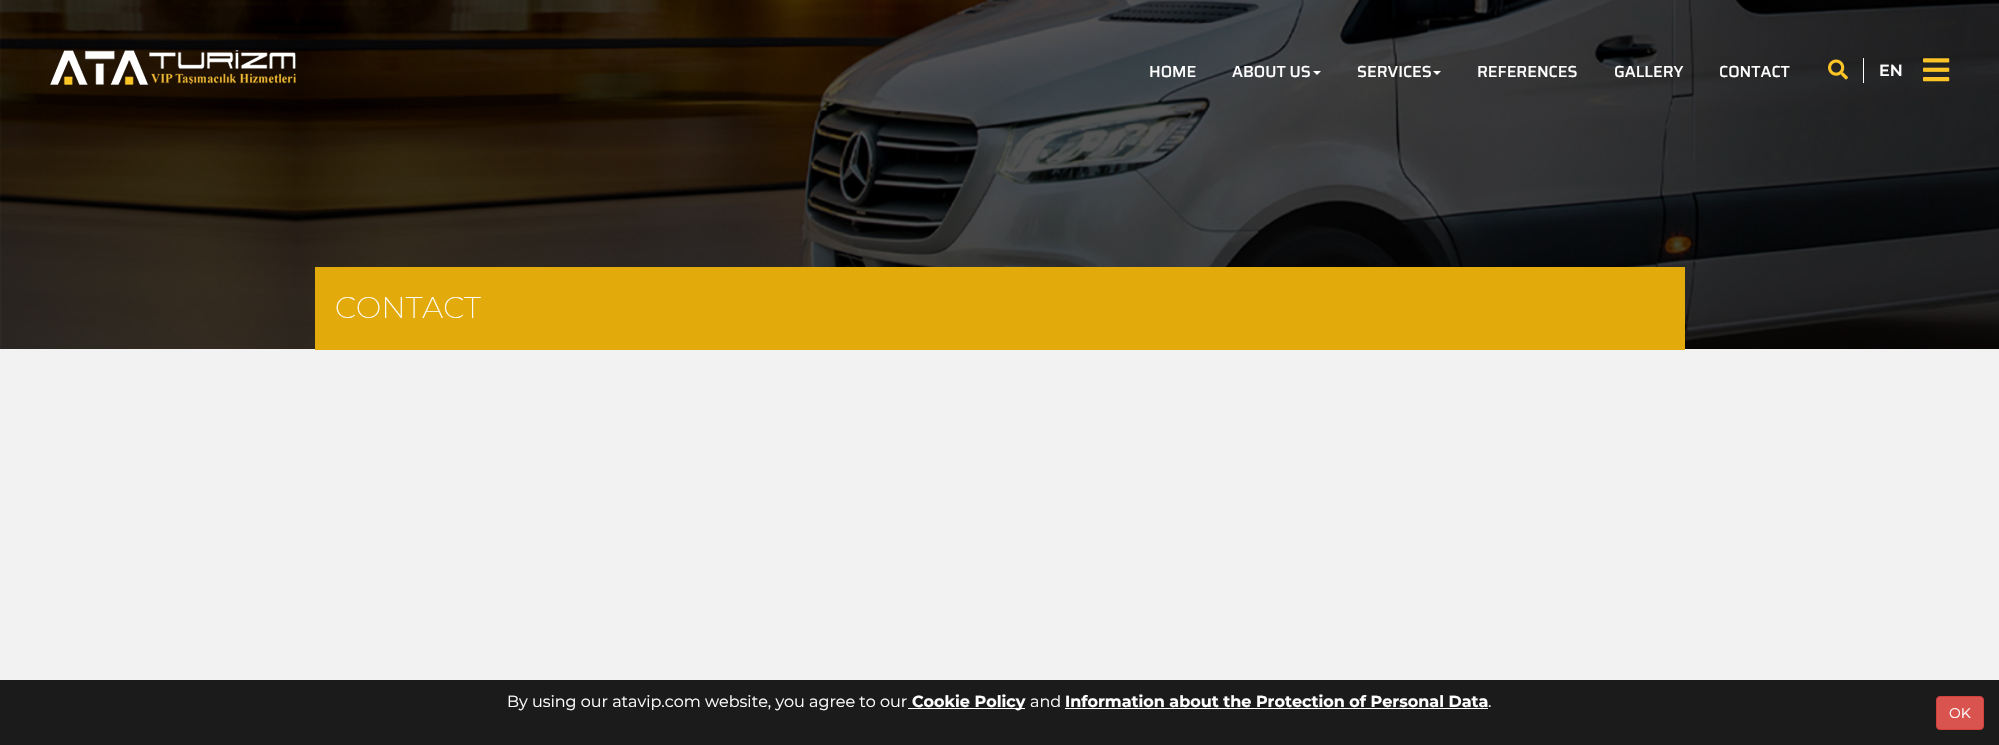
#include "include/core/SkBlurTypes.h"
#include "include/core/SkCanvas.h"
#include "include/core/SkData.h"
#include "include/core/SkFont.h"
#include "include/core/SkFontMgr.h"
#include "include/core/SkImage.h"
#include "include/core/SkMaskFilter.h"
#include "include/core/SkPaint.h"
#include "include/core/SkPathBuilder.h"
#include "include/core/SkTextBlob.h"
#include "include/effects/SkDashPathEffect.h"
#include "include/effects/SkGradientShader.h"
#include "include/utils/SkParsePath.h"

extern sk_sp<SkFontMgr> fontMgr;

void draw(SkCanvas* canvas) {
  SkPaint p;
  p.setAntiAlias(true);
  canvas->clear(SkColorSetRGB(242, 242, 242));
  canvas->drawImageRect(SkImages::DeferredFromEncodedData(SkData::MakeFromFileName("images/4.png")), SkRect::MakeLTRB(0, 0, 1999, 349), SkSamplingOptions());
  canvas->drawImageRect(SkImages::DeferredFromEncodedData(SkData::MakeFromFileName("images/1.png")), SkRect::MakeLTRB(50, 50, 296, 85), SkSamplingOptions());
  p.setColor(SK_ColorWHITE);
  canvas->drawPath(SkPathBuilder().moveTo(1313, 71).lineTo(1321, 71).lineTo(1317, 75).close().detach(), p);
  canvas->drawPath(SkPathBuilder().moveTo(1433, 71).lineTo(1441, 71).lineTo(1437, 75).close().detach(), p);
  canvas->drawImageRect(SkImages::DeferredFromEncodedData(SkData::MakeFromFileName("images/2.png")), SkRect::MakeLTRB(1828, 59, 1848, 80), SkSamplingOptions());
  canvas->drawRect(SkRect::MakeLTRB(1863, 58, 1864, 83), p);
  canvas->drawImageRect(SkImages::DeferredFromEncodedData(SkData::MakeFromFileName("images/3.png")), SkRect::MakeLTRB(1923, 58, 1950, 82), SkSamplingOptions());
  p.setColor(SkColorSetRGB(227, 170, 11));
  canvas->drawRect(SkRect::MakeLTRB(315, 267, 1685, 350), p);
  p.setColor(SkColorSetRGB(27, 27, 27));
  canvas->drawRect(SkRect::MakeLTRB(0, 680, 1999, 745), p);
  p.setColor(SK_ColorWHITE);
  canvas->drawRect(SkRect::MakeLTRB(908, 708, 1025, 709), p);
  canvas->drawRect(SkRect::MakeLTRB(1065, 708, 1488, 709), p);
  p.setColor(SkColorSetRGB(217, 83, 79));
  canvas->drawRoundRect(SkRect::MakeLTRB(1936.5f, 696.5f, 1983.5f, 729.5f), 3.5f, 3.5f, p);
  p.setStyle(SkPaint::kStroke_Style);
  p.setStrokeWidth(1);
  p.setColor(SkColorSetRGB(212, 63, 58));
  canvas->drawRoundRect(SkRect::MakeLTRB(1936.5f, 696.5f, 1983.5f, 729.5f), 3.5f, 3.5f, p);
  SkFont font1(fontMgr->matchFamilyStyle("Saira", SkFontStyle(500, SkFontStyle::kNormal_Width, SkFontStyle::kUpright_Slant)), 16);
  font1.setSubpixel(true);
  p.setStyle(SkPaint::kFill_Style);
  p.setColor(SK_ColorWHITE);
  canvas->drawString("HOME", 1149, 77, font1, p);
  canvas->drawString("ABOUT US", 1232, 77, font1, p);
  canvas->drawString("SERVICES", 1357, 77, font1, p);
  canvas->drawString("REFERENCES", 1477, 77, font1, p);
  canvas->drawString("GALLERY", 1614, 77, font1, p);
  canvas->drawString("CONTACT", 1719, 77, font1, p);
  SkFont font2(fontMgr->matchFamilyStyle("Montserrat", SkFontStyle(600, SkFontStyle::kNormal_Width, SkFontStyle::kUpright_Slant)), 16);
  font2.setSubpixel(true);
  canvas->drawString("EN", 1879, 76, font2, p);
  SkFont font3(fontMgr->matchFamilyStyle("Montserrat", SkFontStyle(200, SkFontStyle::kNormal_Width, SkFontStyle::kUpright_Slant)), 30);
  font3.setSubpixel(true);
  canvas->drawString("CONTACT", 335, 318, font3, p);
  SkFont font4(fontMgr->matchFamilyStyle("Montserrat", SkFontStyle::Normal()), 16);
  font4.setSubpixel(true);
  canvas->drawString("By using our atavip.com website, you agree to our", 507, 707, font4, p);
  SkFont font5(fontMgr->matchFamilyStyle("Montserrat", SkFontStyle::Bold()), 16);
  font5.setSubpixel(true);
  canvas->drawString("Cookie Policy", 912, 707, font5, p);
  canvas->drawString("and", 1030, 707, font4, p);
  canvas->drawString("Information about the Protection of Personal Data", 1065, 707, font5, p);
  canvas->drawString(".", 1488, 707, font4, p);
  SkFont font6(fontMgr->matchFamilyStyle("Montserrat", SkFontStyle::Normal()), 14);
  font6.setSubpixel(true);
  canvas->drawString("OK", 1949, 718, font6, p);
}
